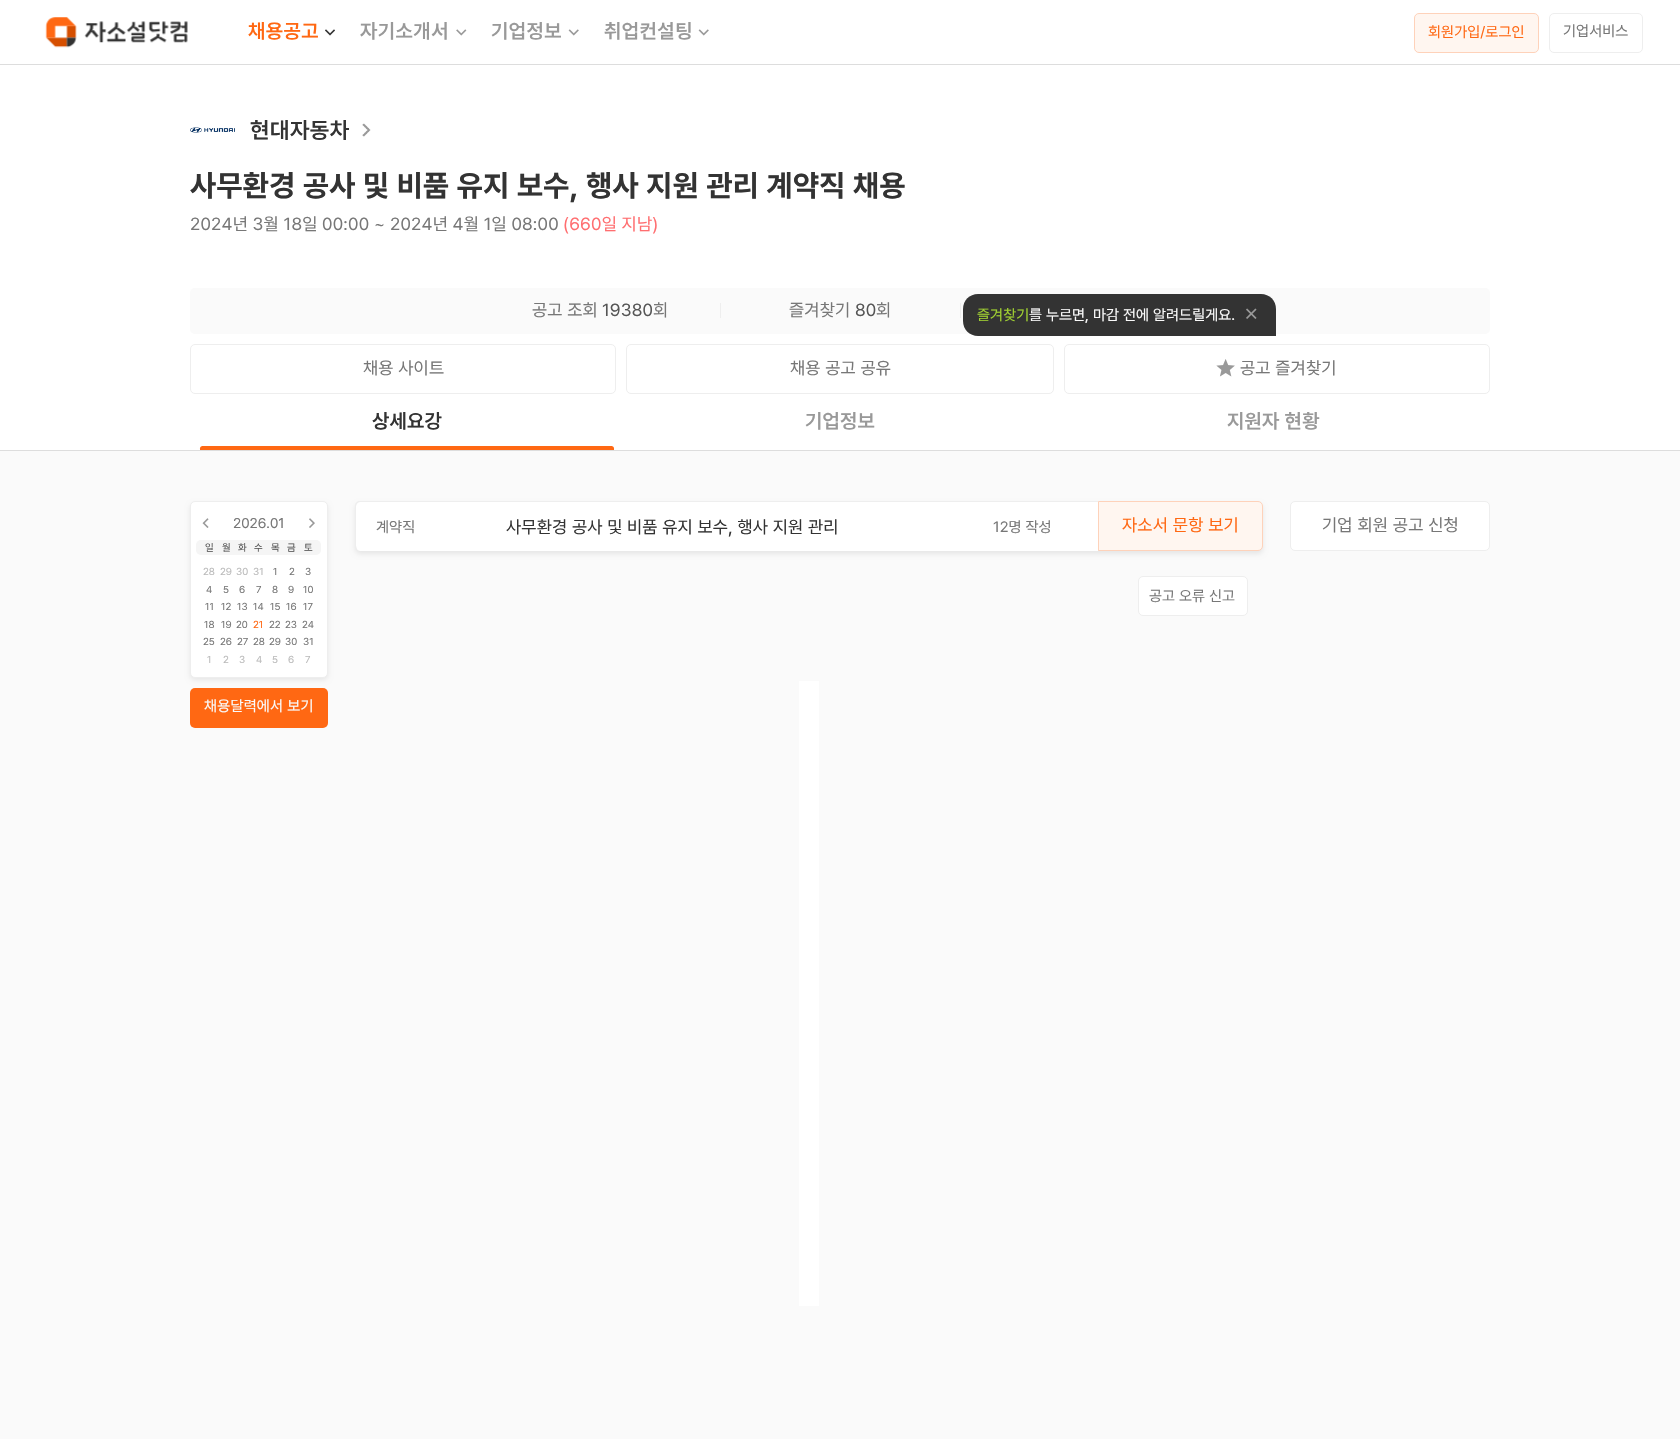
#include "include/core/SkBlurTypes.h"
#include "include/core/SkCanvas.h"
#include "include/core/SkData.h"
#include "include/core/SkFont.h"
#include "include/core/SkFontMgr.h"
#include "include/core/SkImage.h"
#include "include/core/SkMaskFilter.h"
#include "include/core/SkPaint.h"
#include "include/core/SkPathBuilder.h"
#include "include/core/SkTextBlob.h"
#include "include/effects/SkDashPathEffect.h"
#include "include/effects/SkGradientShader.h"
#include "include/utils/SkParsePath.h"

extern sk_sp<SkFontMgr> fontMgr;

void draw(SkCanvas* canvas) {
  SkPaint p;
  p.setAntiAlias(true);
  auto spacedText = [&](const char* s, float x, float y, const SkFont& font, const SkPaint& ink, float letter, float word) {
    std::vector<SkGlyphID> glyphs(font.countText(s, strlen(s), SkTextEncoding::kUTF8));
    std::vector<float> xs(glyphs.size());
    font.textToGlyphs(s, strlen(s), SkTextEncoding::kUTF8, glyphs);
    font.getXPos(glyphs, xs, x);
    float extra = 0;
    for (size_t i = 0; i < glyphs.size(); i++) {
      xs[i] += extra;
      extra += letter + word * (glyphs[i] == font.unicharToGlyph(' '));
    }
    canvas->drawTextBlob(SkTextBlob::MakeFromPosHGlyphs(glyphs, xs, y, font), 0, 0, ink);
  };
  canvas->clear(SK_ColorWHITE);
  p.setColor(SkColorSetRGB(221, 221, 221));
  canvas->drawRect(SkRect::MakeLTRB(0, 64, 1680, 65), p);
  canvas->drawImageRect(SkImages::DeferredFromEncodedData(SkData::MakeFromFileName("images/1.png")), SkRect::MakeLTRB(45, 17, 188, 48), SkSamplingOptions());
  canvas->drawImageRect(SkImages::DeferredFromEncodedData(SkData::MakeFromFileName("images/2.png")), SkRect::MakeLTRB(325, 29, 335, 36), SkSamplingOptions());
  canvas->drawImageRect(SkImages::DeferredFromEncodedData(SkData::MakeFromFileName("images/3.png")), SkRect::MakeLTRB(456, 29, 467, 36), SkSamplingOptions());
  canvas->drawImageRect(SkImages::DeferredFromEncodedData(SkData::MakeFromFileName("images/4.png")), SkRect::MakeLTRB(568, 29, 579, 36), SkSamplingOptions());
  canvas->drawImageRect(SkImages::DeferredFromEncodedData(SkData::MakeFromFileName("images/4.png")), SkRect::MakeLTRB(698, 29, 709, 36), SkSamplingOptions());
  p.setColor(SkColorSetRGB(255, 246, 240));
  canvas->drawRoundRect(SkRect::MakeLTRB(1414.5f, 13.5f, 1538.5f, 52.5f), 4.5f, 4.5f, p);
  p.setStyle(SkPaint::kStroke_Style);
  p.setStrokeWidth(1);
  p.setColor(SkColorSetRGB(254, 210, 186));
  canvas->drawRoundRect(SkRect::MakeLTRB(1414.5f, 13.5f, 1538.5f, 52.5f), 4.5f, 4.5f, p);
  p.setColor(SkColorSetRGB(238, 238, 238));
  canvas->drawRoundRect(SkRect::MakeLTRB(1549.5f, 13.5f, 1642.5f, 52.5f), 4.5f, 4.5f, p);
  canvas->drawImageRect(SkImages::DeferredFromEncodedData(SkData::MakeFromFileName("images/5.png")), SkRect::MakeLTRB(190, 127, 235, 133), SkSamplingOptions());
  canvas->drawImageRect(SkImages::DeferredFromEncodedData(SkData::MakeFromFileName("images/6.png")), SkRect::MakeLTRB(362, 123, 371, 137), SkSamplingOptions());
  p.setStyle(SkPaint::kFill_Style);
  p.setColor(SkColorSetRGB(250, 250, 250));
  canvas->drawRoundRect(SkRect::MakeLTRB(190, 288, 1490, 334), 5, 5, p);
  p.setColor(SkColorSetRGB(238, 238, 238));
  canvas->drawRect(SkRect::MakeLTRB(720, 303, 721, 318), p);
  canvas->drawRect(SkRect::MakeLTRB(960, 303, 961, 318), p);
  p.setStyle(SkPaint::kStroke_Style);
  canvas->drawRoundRect(SkRect::MakeLTRB(190.5f, 344.5f, 615.5f, 393.5f), 4.5f, 4.5f, p);
  canvas->drawRoundRect(SkRect::MakeLTRB(626.5f, 344.5f, 1053.5f, 393.5f), 4.5f, 4.5f, p);
  p.setStyle(SkPaint::kFill_Style);
  p.setColor(SkColorSetRGB(51, 51, 51));
  canvas->drawPath(SkPathBuilder().moveTo(978, 294).lineTo(1261, 294).cubicTo(1269.5f, 294, 1276, 300.5f, 1276, 309).lineTo(1276, 336).lineTo(978, 336).cubicTo(969.5f, 336, 963, 329.5f, 963, 321).lineTo(963, 309).cubicTo(963, 300.5f, 969.5f, 294, 978, 294).close().detach(), p);
  canvas->drawImageRect(SkImages::DeferredFromEncodedData(SkData::MakeFromFileName("images/7.png")), SkRect::MakeLTRB(1246, 308, 1257, 319), SkSamplingOptions());
  p.setStyle(SkPaint::kStroke_Style);
  p.setColor(SkColorSetRGB(238, 238, 238));
  canvas->drawRoundRect(SkRect::MakeLTRB(1064.5f, 344.5f, 1489.5f, 393.5f), 4.5f, 4.5f, p);
  canvas->drawImageRect(SkImages::DeferredFromEncodedData(SkData::MakeFromFileName("images/8.png")), SkRect::MakeLTRB(1216, 359, 1235, 377), SkSamplingOptions());
  p.setStyle(SkPaint::kFill_Style);
  p.setColor(SkColorSetRGB(221, 221, 221));
  canvas->drawRect(SkRect::MakeLTRB(0, 450, 1680, 451), p);
  p.setColor(SkColorSetRGB(255, 104, 19));
  canvas->drawPath(SkPathBuilder().moveTo(202.5f, 446).lineTo(611.5f, 446).cubicTo(613, 446, 614, 447, 614, 448.5f).lineTo(614, 450).lineTo(200, 450).lineTo(200, 448.5f).cubicTo(200, 447, 201, 446, 202.5f, 446).close().detach(), p);
  p.setColor(SkColorSetRGB(250, 250, 250));
  canvas->drawRect(SkRect::MakeLTRB(0, 451, 1680, 1439), p);
  p.setColor(SkColorSetARGB(20, 0, 0, 0));
  p.setMaskFilter(SkMaskFilter::MakeBlur(kNormal_SkBlurStyle, 2.5f));
  canvas->drawRoundRect(SkRect::MakeLTRB(190, 504, 328, 680), 5, 5, p);
  p.setMaskFilter(nullptr);
  p.setColor(SK_ColorWHITE);
  canvas->drawRoundRect(SkRect::MakeLTRB(190.5f, 501.5f, 327.5f, 677.5f), 4.5f, 4.5f, p);
  p.setStyle(SkPaint::kStroke_Style);
  p.setColor(SkColorSetRGB(238, 238, 238));
  canvas->drawRoundRect(SkRect::MakeLTRB(190.5f, 501.5f, 327.5f, 677.5f), 4.5f, 4.5f, p);
  canvas->drawImageRect(SkImages::DeferredFromEncodedData(SkData::MakeFromFileName("images/9.png")), SkRect::MakeLTRB(202, 518, 209, 528), SkSamplingOptions());
  canvas->drawImageRect(SkImages::DeferredFromEncodedData(SkData::MakeFromFileName("images/10.png")), SkRect::MakeLTRB(309, 518, 315, 528), SkSamplingOptions());
  p.setStyle(SkPaint::kFill_Style);
  p.setColor(SkColorSetRGB(245, 245, 245));
  canvas->drawRoundRect(SkRect::MakeLTRB(196, 540, 321, 555), 5, 5, p);
  p.setColor(SkColorSetRGB(255, 104, 19));
  canvas->drawRoundRect(SkRect::MakeLTRB(190, 688, 328, 728), 5, 5, p);
  p.setColor(SkColorSetARGB(20, 0, 0, 0));
  p.setMaskFilter(SkMaskFilter::MakeBlur(kNormal_SkBlurStyle, 2.5f));
  canvas->drawRoundRect(SkRect::MakeLTRB(355, 504, 1263, 554), 5, 5, p);
  p.setMaskFilter(nullptr);
  p.setColor(SK_ColorWHITE);
  canvas->drawPath(SkPathBuilder().moveTo(360, 502).lineTo(1098, 502).lineTo(1098, 551).lineTo(360, 551).cubicTo(358, 551, 356, 549, 356, 546).lineTo(356, 506).cubicTo(356, 504, 358, 502, 360, 502).close().detach(), p);
  p.setColor(SkColorSetRGB(238, 238, 238));
  canvas->drawPath(SkPathBuilder(SkPathFillType::kEvenOdd).moveTo(360, 501).lineTo(1098, 501).lineTo(1098, 551).lineTo(360, 551).cubicTo(357, 551, 355, 549, 355, 546).lineTo(355, 506).cubicTo(355, 503, 357, 501, 360, 501).close().moveTo(360, 502).lineTo(1098, 502).lineTo(1098, 551).lineTo(360, 551).cubicTo(358, 551, 356, 549, 356, 546).lineTo(356, 506).cubicTo(356, 504, 358, 502, 360, 502).close().detach(), p);
  p.setColor(SkColorSetRGB(255, 246, 240));
  canvas->drawPath(SkPathBuilder().moveTo(1098.5f, 501.5f).lineTo(1258, 501.5f).cubicTo(1260.5f, 501.5f, 1262.5f, 503.5f, 1262.5f, 506).lineTo(1262.5f, 546).cubicTo(1262.5f, 548.5f, 1260.5f, 550.5f, 1258, 550.5f).lineTo(1098.5f, 550.5f).close().detach(), p);
  p.setStyle(SkPaint::kStroke_Style);
  p.setColor(SkColorSetRGB(254, 210, 186));
  canvas->drawPath(SkPathBuilder().moveTo(1098.5f, 501.5f).lineTo(1258, 501.5f).cubicTo(1260.5f, 501.5f, 1262.5f, 503.5f, 1262.5f, 506).lineTo(1262.5f, 546).cubicTo(1262.5f, 548.5f, 1260.5f, 550.5f, 1258, 550.5f).lineTo(1098.5f, 550.5f).close().detach(), p);
  p.setStyle(SkPaint::kFill_Style);
  p.setColor(SK_ColorWHITE);
  canvas->drawRoundRect(SkRect::MakeLTRB(1138.5f, 576.5f, 1247.5f, 615.5f), 4.5f, 4.5f, p);
  p.setStyle(SkPaint::kStroke_Style);
  p.setColor(SkColorSetRGB(238, 238, 238));
  canvas->drawRoundRect(SkRect::MakeLTRB(1138.5f, 576.5f, 1247.5f, 615.5f), 4.5f, 4.5f, p);
  p.setStyle(SkPaint::kFill_Style);
  p.setColor(SK_ColorWHITE);
  canvas->drawRect(SkRect::MakeLTRB(799, 681, 819, 1306), p);
  canvas->drawRoundRect(SkRect::MakeLTRB(1290.5f, 501.5f, 1489.5f, 550.5f), 4.5f, 4.5f, p);
  p.setStyle(SkPaint::kStroke_Style);
  p.setColor(SkColorSetRGB(238, 238, 238));
  canvas->drawRoundRect(SkRect::MakeLTRB(1290.5f, 501.5f, 1489.5f, 550.5f), 4.5f, 4.5f, p);
  SkFont font1(fontMgr->matchFamilyStyle("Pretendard", SkFontStyle(600, SkFontStyle::kNormal_Width, SkFontStyle::kUpright_Slant)), 20);
  font1.setSubpixel(true);
  p.setStyle(SkPaint::kFill_Style);
  p.setColor(SkColorSetRGB(255, 104, 19));
  spacedText("채용공고", 248, 38, font1, p, 0.5f, 0);
  p.setColor(SkColorSetRGB(153, 153, 153));
  spacedText("자기소개서", 360, 38, font1, p, 0.5f, 0);
  spacedText("기업정보", 491, 38, font1, p, 0.5f, 0);
  spacedText("취업컨설팅", 604, 38, font1, p, 0.5f, 0);
  SkFont font2(fontMgr->matchFamilyStyle("Pretendard", SkFontStyle::Normal()), 15);
  font2.setSubpixel(true);
  p.setColor(SkColorSetRGB(255, 104, 19));
  spacedText("회원가입/로그인", 1428, 37, font2, p, 0.1f, 0);
  p.setColor(SkColorSetRGB(119, 119, 119));
  spacedText("기업서비스", 1563, 36, font2, p, 0.1f, 0);
  SkFont font3(fontMgr->matchFamilyStyle("Pretendard", SkFontStyle(600, SkFontStyle::kNormal_Width, SkFontStyle::kUpright_Slant)), 22.5f);
  font3.setSubpixel(true);
  p.setColor(SkColorSetRGB(51, 51, 51));
  spacedText("현대자동차", 250, 138, font3, p, 0.5f, 0);
  SkFont font4(fontMgr->matchFamilyStyle("Pretendard", SkFontStyle::Bold()), 30);
  font4.setSubpixel(true);
  spacedText("사무환경 공사 및 비품 유지 보수, 행사 지원 관리 계약직 채용", 190, 196, font4, p, 0.45f, 0);
  SkFont font5(fontMgr->matchFamilyStyle("Pretendard", SkFontStyle::Normal()), 17.5f);
  font5.setSubpixel(true);
  p.setColor(SkColorSetRGB(119, 119, 119));
  spacedText("2024년 3월 18일 00:00", 190, 230, font5, p, 0.2f, 0);
  spacedText("~", 374, 230, font5, p, 0.2f, 0);
  spacedText("2024년 4월 1일 08:00", 390, 230, font5, p, 0.2f, 0);
  p.setColor(SkColorSetRGB(255, 110, 112));
  spacedText("(660일 지남)", 563, 230, font5, p, 0.2f, 0);
  p.setColor(SkColorSetRGB(119, 119, 119));
  spacedText("공고 조회", 532, 316, font5, p, 0.2f, 0);
  p.setColor(SkColorSetRGB(85, 85, 85));
  spacedText("19380", 602, 316, font5, p, 0.2f, 0);
  p.setColor(SkColorSetRGB(119, 119, 119));
  spacedText("회", 653, 316, font5, p, 0.2f, 0);
  spacedText("즐겨찾기", 789, 316, font5, p, 0.2f, 0);
  p.setColor(SkColorSetRGB(85, 85, 85));
  spacedText("80", 855, 316, font5, p, 0.2f, 0);
  p.setColor(SkColorSetRGB(119, 119, 119));
  spacedText("회", 876, 316, font5, p, 0.2f, 0);
  spacedText("채용 사이트", 363, 374, font5, p, 0.2f, 0);
  spacedText("채용 공고 공유", 790, 374, font5, p, 0.2f, 0);
  p.setColor(SkColorSetRGB(160, 208, 49));
  spacedText("즐겨찾기", 977, 320, font2, p, 0.1f, 0);
  p.setColor(SkColorSetRGB(250, 250, 250));
  spacedText("를 누르면, 마감 전에 알려드릴게요.", 1029, 320, font2, p, 0.1f, 0);
  p.setColor(SkColorSetRGB(119, 119, 119));
  spacedText("공고 즐겨찾기", 1240, 374, font5, p, 0.2f, 0);
  p.setColor(SkColorSetRGB(51, 51, 51));
  spacedText("상세요강", 372, 428, font1, p, 0.25f, 0);
  p.setColor(SkColorSetRGB(153, 153, 153));
  spacedText("기업정보", 805, 428, font1, p, 0.25f, 0);
  spacedText("지원자 현황", 1227, 428, font1, p, 0.25f, 0);
  SkFont font6(fontMgr->matchFamilyStyle("Pretendard", SkFontStyle::Normal()), 14);
  font6.setSubpixel(true);
  p.setColor(SkColorSetRGB(119, 119, 119));
  canvas->drawString("2026.01", 233, 528, font6, p);
  SkFont font7(fontMgr->matchFamilyStyle("Pretendard", SkFontStyle::Normal()), 10);
  font7.setSubpixel(true);
  p.setColor(SkColorSetRGB(85, 85, 85));
  canvas->drawString("일", 205, 551, font7, p);
  canvas->drawString("월", 222, 551, font7, p);
  canvas->drawString("화", 238, 551, font7, p);
  canvas->drawString("수", 254, 551, font7, p);
  canvas->drawString("목", 271, 551, font7, p);
  canvas->drawString("금", 287, 551, font7, p);
  canvas->drawString("토", 304, 551, font7, p);
  p.setColor(SkColorSetRGB(187, 187, 187));
  canvas->drawString("28", 203, 575, font7, p);
  canvas->drawString("29", 220, 575, font7, p);
  canvas->drawString("30", 236, 575, font7, p);
  canvas->drawString("31", 253, 575, font7, p);
  p.setColor(SkColorSetRGB(119, 119, 119));
  canvas->drawString("1", 273, 575, font7, p);
  canvas->drawString("2", 289, 575, font7, p);
  canvas->drawString("3", 305, 575, font7, p);
  canvas->drawString("4", 206, 593, font7, p);
  canvas->drawString("5", 223, 593, font7, p);
  canvas->drawString("6", 239, 593, font7, p);
  canvas->drawString("7", 256, 593, font7, p);
  canvas->drawString("8", 272, 593, font7, p);
  canvas->drawString("9", 288, 593, font7, p);
  canvas->drawString("10", 303, 593, font7, p);
  canvas->drawString("11", 205, 610, font7, p);
  canvas->drawString("12", 221, 610, font7, p);
  canvas->drawString("13", 237, 610, font7, p);
  canvas->drawString("14", 253, 610, font7, p);
  canvas->drawString("15", 270, 610, font7, p);
  canvas->drawString("16", 286, 610, font7, p);
  canvas->drawString("17", 303, 610, font7, p);
  canvas->drawString("18", 204, 628, font7, p);
  canvas->drawString("19", 221, 628, font7, p);
  canvas->drawString("20", 236, 628, font7, p);
  p.setColor(SkColorSetRGB(255, 104, 19));
  canvas->drawString("21", 253, 628, font7, p);
  p.setColor(SkColorSetRGB(119, 119, 119));
  canvas->drawString("22", 269, 628, font7, p);
  canvas->drawString("23", 285, 628, font7, p);
  canvas->drawString("24", 302, 628, font7, p);
  canvas->drawString("25", 203, 645, font7, p);
  canvas->drawString("26", 220, 645, font7, p);
  canvas->drawString("27", 237, 645, font7, p);
  canvas->drawString("28", 253, 645, font7, p);
  canvas->drawString("29", 269, 645, font7, p);
  canvas->drawString("30", 285, 645, font7, p);
  canvas->drawString("31", 303, 645, font7, p);
  p.setColor(SkColorSetRGB(187, 187, 187));
  canvas->drawString("1", 207, 663, font7, p);
  canvas->drawString("2", 223, 663, font7, p);
  canvas->drawString("3", 239, 663, font7, p);
  canvas->drawString("4", 256, 663, font7, p);
  canvas->drawString("5", 272, 663, font7, p);
  canvas->drawString("6", 288, 663, font7, p);
  canvas->drawString("7", 305, 663, font7, p);
  p.setColor(SkColorSetRGB(250, 250, 250));
  spacedText("채용달력에서 보기", 204, 711, font2, p, 0.25f, 0);
  p.setColor(SkColorSetRGB(119, 119, 119));
  spacedText("계약직", 376, 532, font2, p, 0.1f, 0);
  p.setColor(SkColorSetRGB(51, 51, 51));
  spacedText("사무환경 공사 및 비품 유지 보수, 행사 지원 관리", 506, 533, font5, p, 0.2f, 0);
  p.setColor(SkColorSetRGB(119, 119, 119));
  spacedText("12명 작성", 993, 532, font2, p, 0.1f, 0);
  p.setColor(SkColorSetRGB(255, 104, 19));
  spacedText("자소서 문항 보기", 1122, 531, font5, p, 0.25f, 0);
  p.setColor(SkColorSetRGB(119, 119, 119));
  spacedText("공고 오류 신고", 1149, 601, font2, p, 0.1f, 0);
  spacedText("기업 회원 공고 신청", 1322, 531, font5, p, 0.25f, 0);
}
